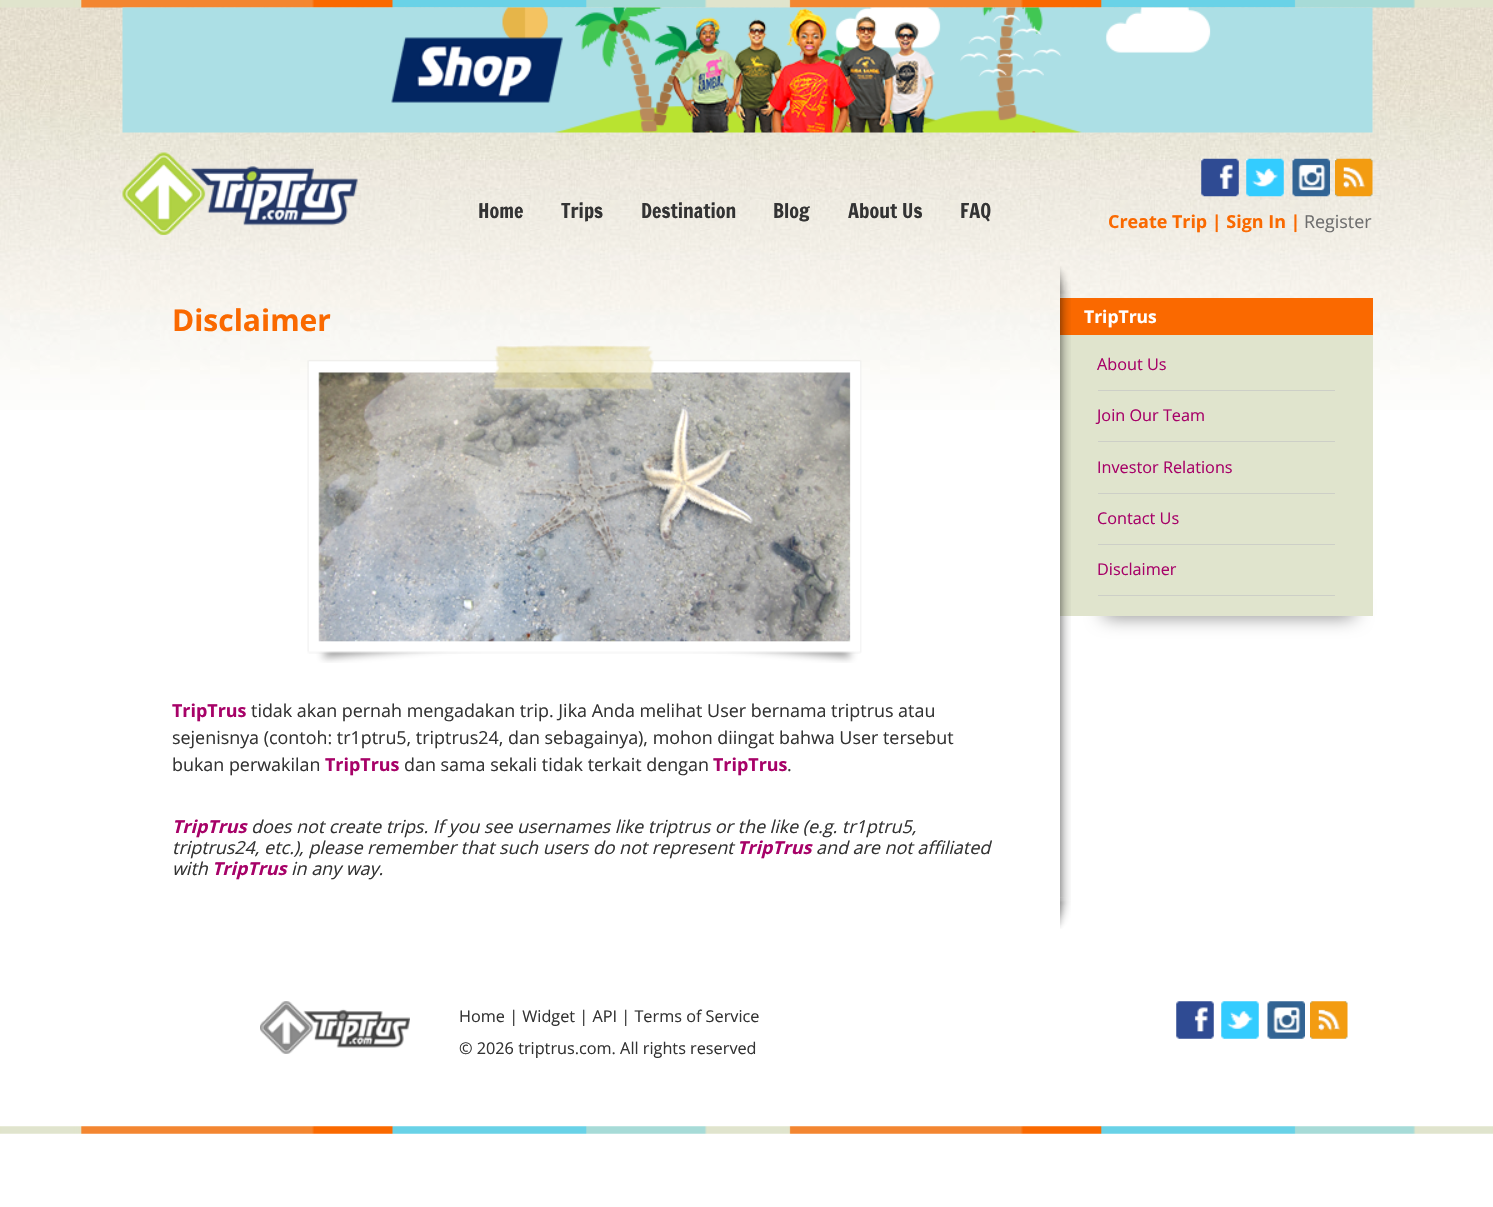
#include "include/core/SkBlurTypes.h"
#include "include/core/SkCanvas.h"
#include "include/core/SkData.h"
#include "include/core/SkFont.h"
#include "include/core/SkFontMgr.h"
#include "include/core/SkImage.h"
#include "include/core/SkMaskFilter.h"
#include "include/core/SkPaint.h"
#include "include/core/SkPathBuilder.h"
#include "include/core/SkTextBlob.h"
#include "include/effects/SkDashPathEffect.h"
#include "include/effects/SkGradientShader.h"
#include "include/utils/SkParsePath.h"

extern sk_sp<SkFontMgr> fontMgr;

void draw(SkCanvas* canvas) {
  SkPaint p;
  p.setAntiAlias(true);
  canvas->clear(SK_ColorWHITE);
  canvas->drawImageRect(SkImages::DeferredFromEncodedData(SkData::MakeFromFileName("images/1.png")), SkRect::MakeLTRB(0, 7, 1493, 410), SkSamplingOptions());
  canvas->drawImageRect(SkImages::DeferredFromEncodedData(SkData::MakeFromFileName("images/2.png")), SkRect::MakeLTRB(0, 0, 1493, 8), SkSamplingOptions());
  canvas->drawImageRect(SkImages::DeferredFromEncodedData(SkData::MakeFromFileName("images/3.png")), SkRect::MakeLTRB(122, 7, 1373, 133), SkSamplingOptions());
  canvas->drawImageRect(SkImages::DeferredFromEncodedData(SkData::MakeFromFileName("images/4.png")), SkRect::MakeLTRB(122, 152, 358, 235), SkSamplingOptions());
  canvas->drawImageRect(SkImages::DeferredFromEncodedData(SkData::MakeFromFileName("images/5.png")), SkRect::MakeLTRB(1201, 158, 1239, 197), SkSamplingOptions());
  canvas->drawImageRect(SkImages::DeferredFromEncodedData(SkData::MakeFromFileName("images/6.png")), SkRect::MakeLTRB(1246, 158, 1284, 197), SkSamplingOptions());
  canvas->drawImageRect(SkImages::DeferredFromEncodedData(SkData::MakeFromFileName("images/7.png")), SkRect::MakeLTRB(1292, 158, 1330, 197), SkSamplingOptions());
  canvas->drawImageRect(SkImages::DeferredFromEncodedData(SkData::MakeFromFileName("images/8.png")), SkRect::MakeLTRB(1335, 158, 1373, 197), SkSamplingOptions());
  canvas->drawImageRect(SkImages::DeferredFromEncodedData(SkData::MakeFromFileName("images/9.png")), SkRect::MakeLTRB(1060, 266, 1071, 298), SkSamplingOptions());
  canvas->drawImageRect(SkImages::DeferredFromEncodedData(SkData::MakeFromFileName("images/10.png")), SkRect::MakeLTRB(307, 345, 862, 663), SkSamplingOptions());
  p.setColor(SkColorSetRGB(250, 105, 0));
  canvas->drawRect(SkRect::MakeLTRB(1060, 298, 1373, 335), p);
  p.setColor(SkColorSetARGB(128, 0, 0, 0));
  p.setMaskFilter(SkMaskFilter::MakeBlur(kNormal_SkBlurStyle, 9.5f));
  canvas->drawRect(SkRect::MakeLTRB(1104, 598, 1354, 616), p);
  p.setMaskFilter(nullptr);
  p.setColor(SkColorSetRGB(224, 228, 205));
  canvas->drawRect(SkRect::MakeLTRB(1060, 335, 1373, 616), p);
  canvas->drawImageRect(SkImages::DeferredFromEncodedData(SkData::MakeFromFileName("images/12.png")), SkRect::MakeLTRB(1060, 897, 1071, 929), SkSamplingOptions());
  canvas->drawImageRect(SkImages::DeferredFromEncodedData(SkData::MakeFromFileName("images/11.png")), SkRect::MakeLTRB(1060, 297, 1071, 898), SkSamplingOptions());
  p.setColor(SkColorSetRGB(205, 207, 199));
  canvas->drawRect(SkRect::MakeLTRB(1098, 390, 1335, 391), p);
  canvas->drawRect(SkRect::MakeLTRB(1098, 441, 1335, 442), p);
  canvas->drawRect(SkRect::MakeLTRB(1098, 493, 1335, 494), p);
  canvas->drawRect(SkRect::MakeLTRB(1098, 544, 1335, 545), p);
  canvas->drawRect(SkRect::MakeLTRB(1098, 595, 1335, 596), p);
  canvas->drawImageRect(SkImages::DeferredFromEncodedData(SkData::MakeFromFileName("images/13.png")), SkRect::MakeLTRB(260, 1001, 410, 1054), SkSamplingOptions());
  canvas->drawImageRect(SkImages::DeferredFromEncodedData(SkData::MakeFromFileName("images/14.png")), SkRect::MakeLTRB(1176, 1001, 1214, 1039), SkSamplingOptions());
  canvas->drawImageRect(SkImages::DeferredFromEncodedData(SkData::MakeFromFileName("images/15.png")), SkRect::MakeLTRB(1221, 1001, 1259, 1039), SkSamplingOptions());
  canvas->drawImageRect(SkImages::DeferredFromEncodedData(SkData::MakeFromFileName("images/16.png")), SkRect::MakeLTRB(1267, 1001, 1305, 1039), SkSamplingOptions());
  canvas->drawImageRect(SkImages::DeferredFromEncodedData(SkData::MakeFromFileName("images/17.png")), SkRect::MakeLTRB(1310, 1001, 1348, 1039), SkSamplingOptions());
  canvas->drawImageRect(SkImages::DeferredFromEncodedData(SkData::MakeFromFileName("images/18.png")), SkRect::MakeLTRB(0, 1126, 1493, 1134), SkSamplingOptions());
  SkFont font1(fontMgr->matchFamilyStyle("Francois One", SkFontStyle::Normal()), 20);
  font1.setSubpixel(true);
  p.setColor(SkColorSetRGB(51, 51, 51));
  canvas->drawString("Home", 478, 218, font1, p);
  canvas->drawString("Trips", 561, 218, font1, p);
  canvas->drawString("Destination", 641, 218, font1, p);
  canvas->drawString("Blog", 773, 218, font1, p);
  canvas->drawString("About Us", 848, 218, font1, p);
  canvas->drawString("FAQ", 960, 218, font1, p);
  SkFont font2(fontMgr->matchFamilyStyle("Open Sans", SkFontStyle::Bold()), 17.9f);
  font2.setSubpixel(true);
  p.setColor(SkColorSetRGB(250, 105, 0));
  canvas->drawString("Create Trip | Sign In |", 1108, 228, font2, p);
  SkFont font3(fontMgr->matchFamilyStyle("Open Sans", SkFontStyle::Normal()), 17.9f);
  font3.setSubpixel(true);
  p.setColor(SkColorSetRGB(110, 110, 110));
  canvas->drawString("Register", 1304, 228, font3, p);
  SkFont font4(fontMgr->matchFamilyStyle("Open Sans", SkFontStyle::Bold()), 30);
  font4.setSubpixel(true);
  p.setColor(SkColorSetRGB(250, 105, 0));
  canvas->drawString("Disclaimer", 172, 331, font4, p);
  p.setColor(SkColorSetRGB(167, 2, 104));
  canvas->drawString("TripTrus", 172, 717, font2, p);
  p.setColor(SkColorSetRGB(51, 51, 51));
  canvas->drawString("tidak akan pernah mengadakan trip. Jika Anda melihat User bernama triptrus atau", 251, 717, font3, p);
  canvas->drawString("sejenisnya (contoh: tr1ptru5, triptrus24, dan sebagainya), mohon diingat bahwa User tersebut", 172, 744, font3, p);
  canvas->drawString("bukan perwakilan", 172, 771, font3, p);
  p.setColor(SkColorSetRGB(167, 2, 104));
  canvas->drawString("TripTrus", 325, 771, font2, p);
  p.setColor(SkColorSetRGB(51, 51, 51));
  canvas->drawString("dan sama sekali tidak terkait dengan", 404, 771, font3, p);
  p.setColor(SkColorSetRGB(167, 2, 104));
  canvas->drawString("TripTrus", 713, 771, font2, p);
  p.setColor(SkColorSetRGB(51, 51, 51));
  canvas->drawString(".", 787, 771, font3, p);
  SkFont font5(fontMgr->matchFamilyStyle("Open Sans", SkFontStyle::BoldItalic()), 17.9f);
  font5.setSubpixel(true);
  p.setColor(SkColorSetRGB(167, 2, 104));
  canvas->drawString("TripTrus", 172, 833, font5, p);
  SkFont font6(fontMgr->matchFamilyStyle("Open Sans", SkFontStyle::Italic()), 17.9f);
  font6.setSubpixel(true);
  p.setColor(SkColorSetRGB(51, 51, 51));
  canvas->drawString("does not create trips. If you see usernames like triptrus or the like (e.g. tr1ptru5,", 251, 833, font6, p);
  canvas->drawString("triptrus24, etc.), please remember that such users do not represent", 172, 854, font6, p);
  p.setColor(SkColorSetRGB(167, 2, 104));
  canvas->drawString("TripTrus", 737, 854, font5, p);
  p.setColor(SkColorSetRGB(51, 51, 51));
  canvas->drawString("and are not affiliated", 816, 854, font6, p);
  canvas->drawString("with", 172, 875, font6, p);
  p.setColor(SkColorSetRGB(167, 2, 104));
  canvas->drawString("TripTrus", 212, 875, font5, p);
  p.setColor(SkColorSetRGB(51, 51, 51));
  canvas->drawString("in any way.", 291, 875, font6, p);
  SkFont font7(fontMgr->matchFamilyStyle("Open Sans", SkFontStyle::Bold()), 17.5f);
  font7.setSubpixel(true);
  p.setColor(SK_ColorWHITE);
  canvas->drawString("TripTrus", 1084, 323, font7, p);
  SkFont font8(fontMgr->matchFamilyStyle("Open Sans", SkFontStyle::Normal()), 16.25f);
  font8.setSubpixel(true);
  p.setColor(SkColorSetRGB(167, 2, 104));
  canvas->drawString("About Us", 1097, 370, font8, p);
  canvas->drawString("Join Our Team", 1097, 421, font8, p);
  canvas->drawString("Investor Relations", 1097, 473, font8, p);
  canvas->drawString("Contact Us", 1097, 524, font8, p);
  canvas->drawString("Disclaimer", 1097, 575, font8, p);
  p.setColor(SkColorSetRGB(51, 51, 51));
  canvas->drawString("Home | Widget | API | Terms of Service", 459, 1022, font8, p);
  canvas->drawString("© 2026 triptrus.com. All rights reserved", 459, 1054, font8, p);
}
